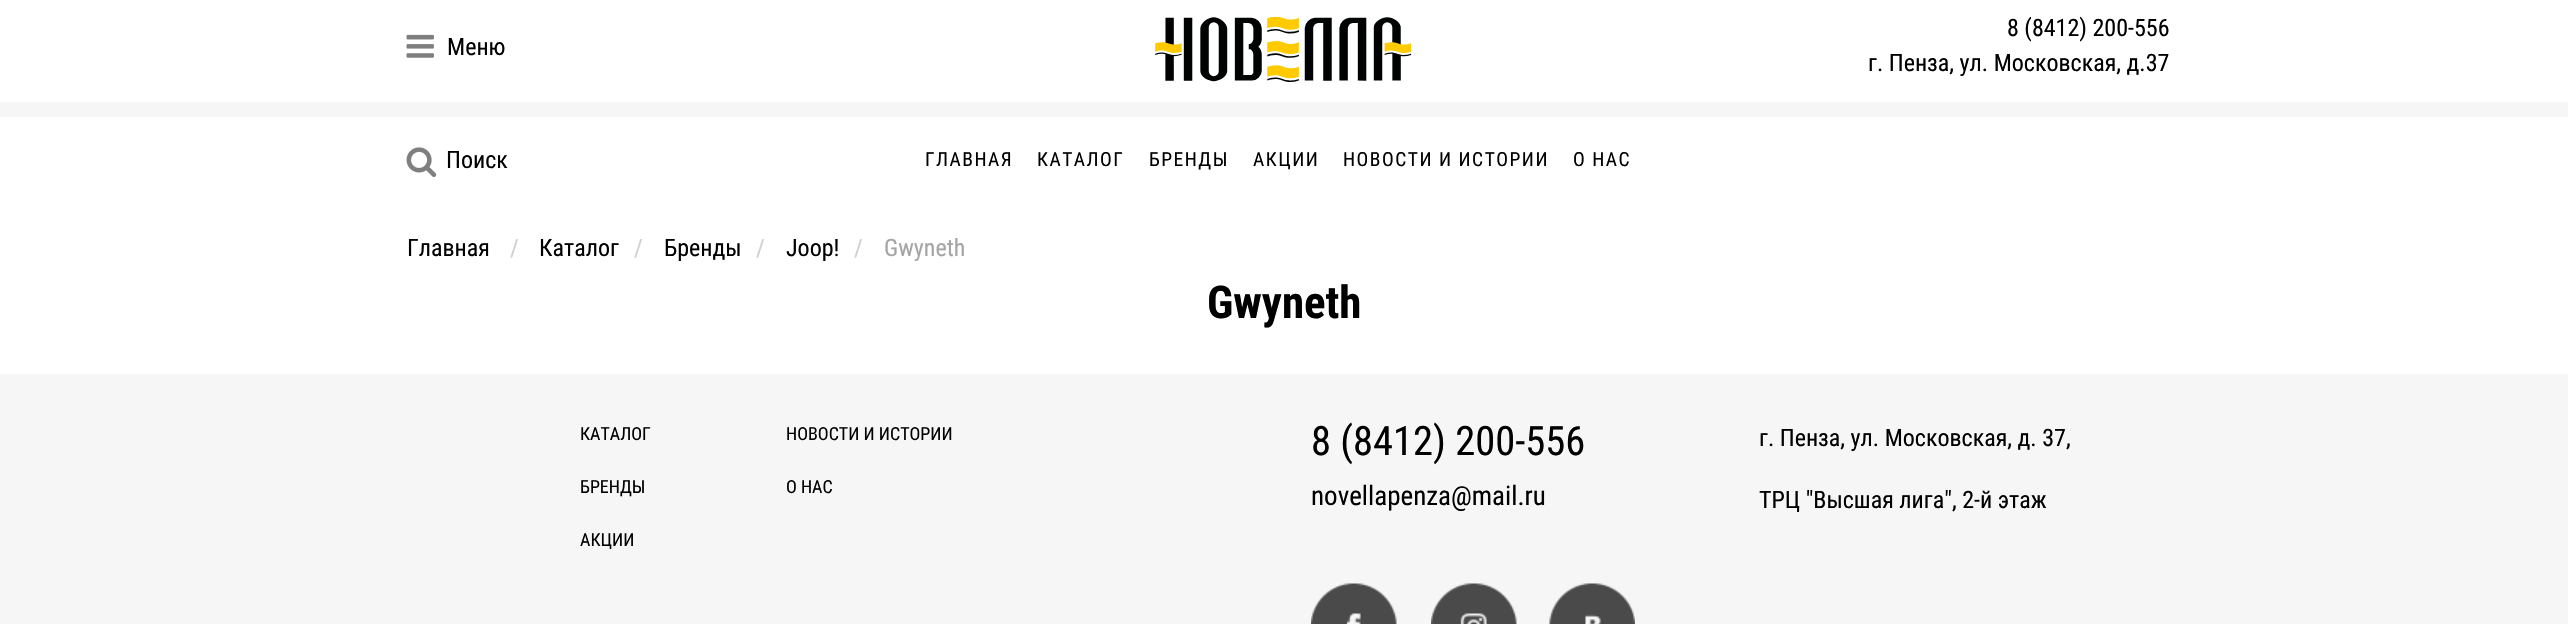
#include "include/core/SkBlurTypes.h"
#include "include/core/SkCanvas.h"
#include "include/core/SkData.h"
#include "include/core/SkFont.h"
#include "include/core/SkFontMgr.h"
#include "include/core/SkImage.h"
#include "include/core/SkMaskFilter.h"
#include "include/core/SkPaint.h"
#include "include/core/SkPathBuilder.h"
#include "include/core/SkTextBlob.h"
#include "include/effects/SkDashPathEffect.h"
#include "include/effects/SkGradientShader.h"
#include "include/utils/SkParsePath.h"

extern sk_sp<SkFontMgr> fontMgr;

void draw(SkCanvas* canvas) {
  SkPaint p;
  p.setAntiAlias(true);
  auto spacedText = [&](const char* s, float x, float y, const SkFont& font, const SkPaint& ink, float letter, float word) {
    std::vector<SkGlyphID> glyphs(font.countText(s, strlen(s), SkTextEncoding::kUTF8));
    std::vector<float> xs(glyphs.size());
    font.textToGlyphs(s, strlen(s), SkTextEncoding::kUTF8, glyphs);
    font.getXPos(glyphs, xs, x);
    float extra = 0;
    for (size_t i = 0; i < glyphs.size(); i++) {
      xs[i] += extra;
      extra += letter + word * (glyphs[i] == font.unicharToGlyph(' '));
    }
    canvas->drawTextBlob(SkTextBlob::MakeFromPosHGlyphs(glyphs, xs, y, font), 0, 0, ink);
  };
  canvas->clear(SK_ColorWHITE);
  p.setColor(SkColorSetRGB(246, 246, 246));
  canvas->drawRect(SkRect::MakeLTRB(0, 102, 2568, 117), p);
  canvas->drawImageRect(SkImages::DeferredFromEncodedData(SkData::MakeFromFileName("images/1.png")), SkRect::MakeLTRB(406, 34, 434, 58), SkSamplingOptions());
  canvas->drawImageRect(SkImages::DeferredFromEncodedData(SkData::MakeFromFileName("images/2.png")), SkRect::MakeLTRB(1155, 17, 1412, 82), SkSamplingOptions());
  canvas->drawImageRect(SkImages::DeferredFromEncodedData(SkData::MakeFromFileName("images/3.png")), SkRect::MakeLTRB(406, 147, 437, 177), SkSamplingOptions());
  canvas->drawRect(SkRect::MakeLTRB(0, 374, 2568, 624), p);
  canvas->drawImageRect(SkImages::DeferredFromEncodedData(SkData::MakeFromFileName("images/4.png")), SkRect::MakeLTRB(1311, 583, 1397, 624), SkSamplingOptions());
  canvas->drawImageRect(SkImages::DeferredFromEncodedData(SkData::MakeFromFileName("images/5.png")), SkRect::MakeLTRB(1431, 583, 1517, 624), SkSamplingOptions());
  canvas->drawImageRect(SkImages::DeferredFromEncodedData(SkData::MakeFromFileName("images/6.png")), SkRect::MakeLTRB(1549, 583, 1635, 624), SkSamplingOptions());
  SkFont font1(fontMgr->matchFamilyStyle("Roboto Condensed", SkFontStyle::Normal()), 24);
  font1.setSubpixel(true);
  p.setColor(SK_ColorBLACK);
  canvas->drawString("Меню", 447, 55, font1, p);
  canvas->drawString("8 (8412) 200-556", 2007, 36, font1, p);
  canvas->drawString("г. Пенза, ул. Московская, д.37", 1868, 71, font1, p);
  canvas->drawString("Поиск", 446, 168, font1, p);
  SkFont font2(fontMgr->matchFamilyStyle("Roboto Condensed", SkFontStyle::Normal()), 19.5f);
  font2.setSubpixel(true);
  spacedText("ГЛАВНАЯ", 925, 166, font2, p, 1.5f, 0);
  spacedText("КАТАЛОГ", 1037, 166, font2, p, 1.5f, 0);
  spacedText("БРЕНДЫ", 1149, 166, font2, p, 1.5f, 0);
  spacedText("АКЦИИ", 1253, 166, font2, p, 1.5f, 0);
  spacedText("НОВОСТИ И ИСТОРИИ", 1343, 166, font2, p, 1.5f, 0);
  spacedText("О НАС", 1573, 166, font2, p, 1.5f, 0);
  canvas->drawString("Главная", 407, 256, font1, p);
  p.setColor(SkColorSetRGB(208, 208, 208));
  canvas->drawString("/", 510, 256, font1, p);
  p.setColor(SK_ColorBLACK);
  canvas->drawString("Каталог", 539, 256, font1, p);
  p.setColor(SkColorSetRGB(208, 208, 208));
  canvas->drawString("/", 634, 256, font1, p);
  p.setColor(SK_ColorBLACK);
  canvas->drawString("Бренды", 664, 256, font1, p);
  p.setColor(SkColorSetRGB(208, 208, 208));
  canvas->drawString("/", 756, 256, font1, p);
  p.setColor(SK_ColorBLACK);
  canvas->drawString("Joop!", 786, 256, font1, p);
  p.setColor(SkColorSetRGB(208, 208, 208));
  canvas->drawString("/", 854, 256, font1, p);
  p.setColor(SkColorSetRGB(165, 165, 165));
  canvas->drawString("Gwyneth", 884, 256, font1, p);
  SkFont font3(fontMgr->matchFamilyStyle("Roboto Condensed", SkFontStyle::Bold()), 45);
  font3.setSubpixel(true);
  p.setColor(SK_ColorBLACK);
  canvas->drawString("Gwyneth", 1207, 318, font3, p);
  SkFont font4(fontMgr->matchFamilyStyle("Roboto Condensed", SkFontStyle::Normal()), 18);
  font4.setSubpixel(true);
  canvas->drawString("КАТАЛОГ", 580, 440, font4, p);
  canvas->drawString("БРЕНДЫ", 580, 493, font4, p);
  canvas->drawString("АКЦИИ", 580, 546, font4, p);
  canvas->drawString("НОВОСТИ И ИСТОРИИ", 786, 440, font4, p);
  canvas->drawString("О НАС", 786, 493, font4, p);
  SkFont font5(fontMgr->matchFamilyStyle("Roboto Condensed", SkFontStyle::Normal()), 40.5f);
  font5.setSubpixel(true);
  canvas->drawString("8 (8412) 200-556", 1311, 455, font5, p);
  SkFont font6(fontMgr->matchFamilyStyle("Roboto Condensed", SkFontStyle::Normal()), 27);
  font6.setSubpixel(true);
  canvas->drawString("novellapenza@mail.ru", 1311, 505, font6, p);
  canvas->drawString("г. Пенза, ул. Московская, д. 37,", 1759, 446, font1, p);
  canvas->drawString("ТРЦ \"Высшая лига\", 2-й этаж", 1759, 508, font1, p);
}
